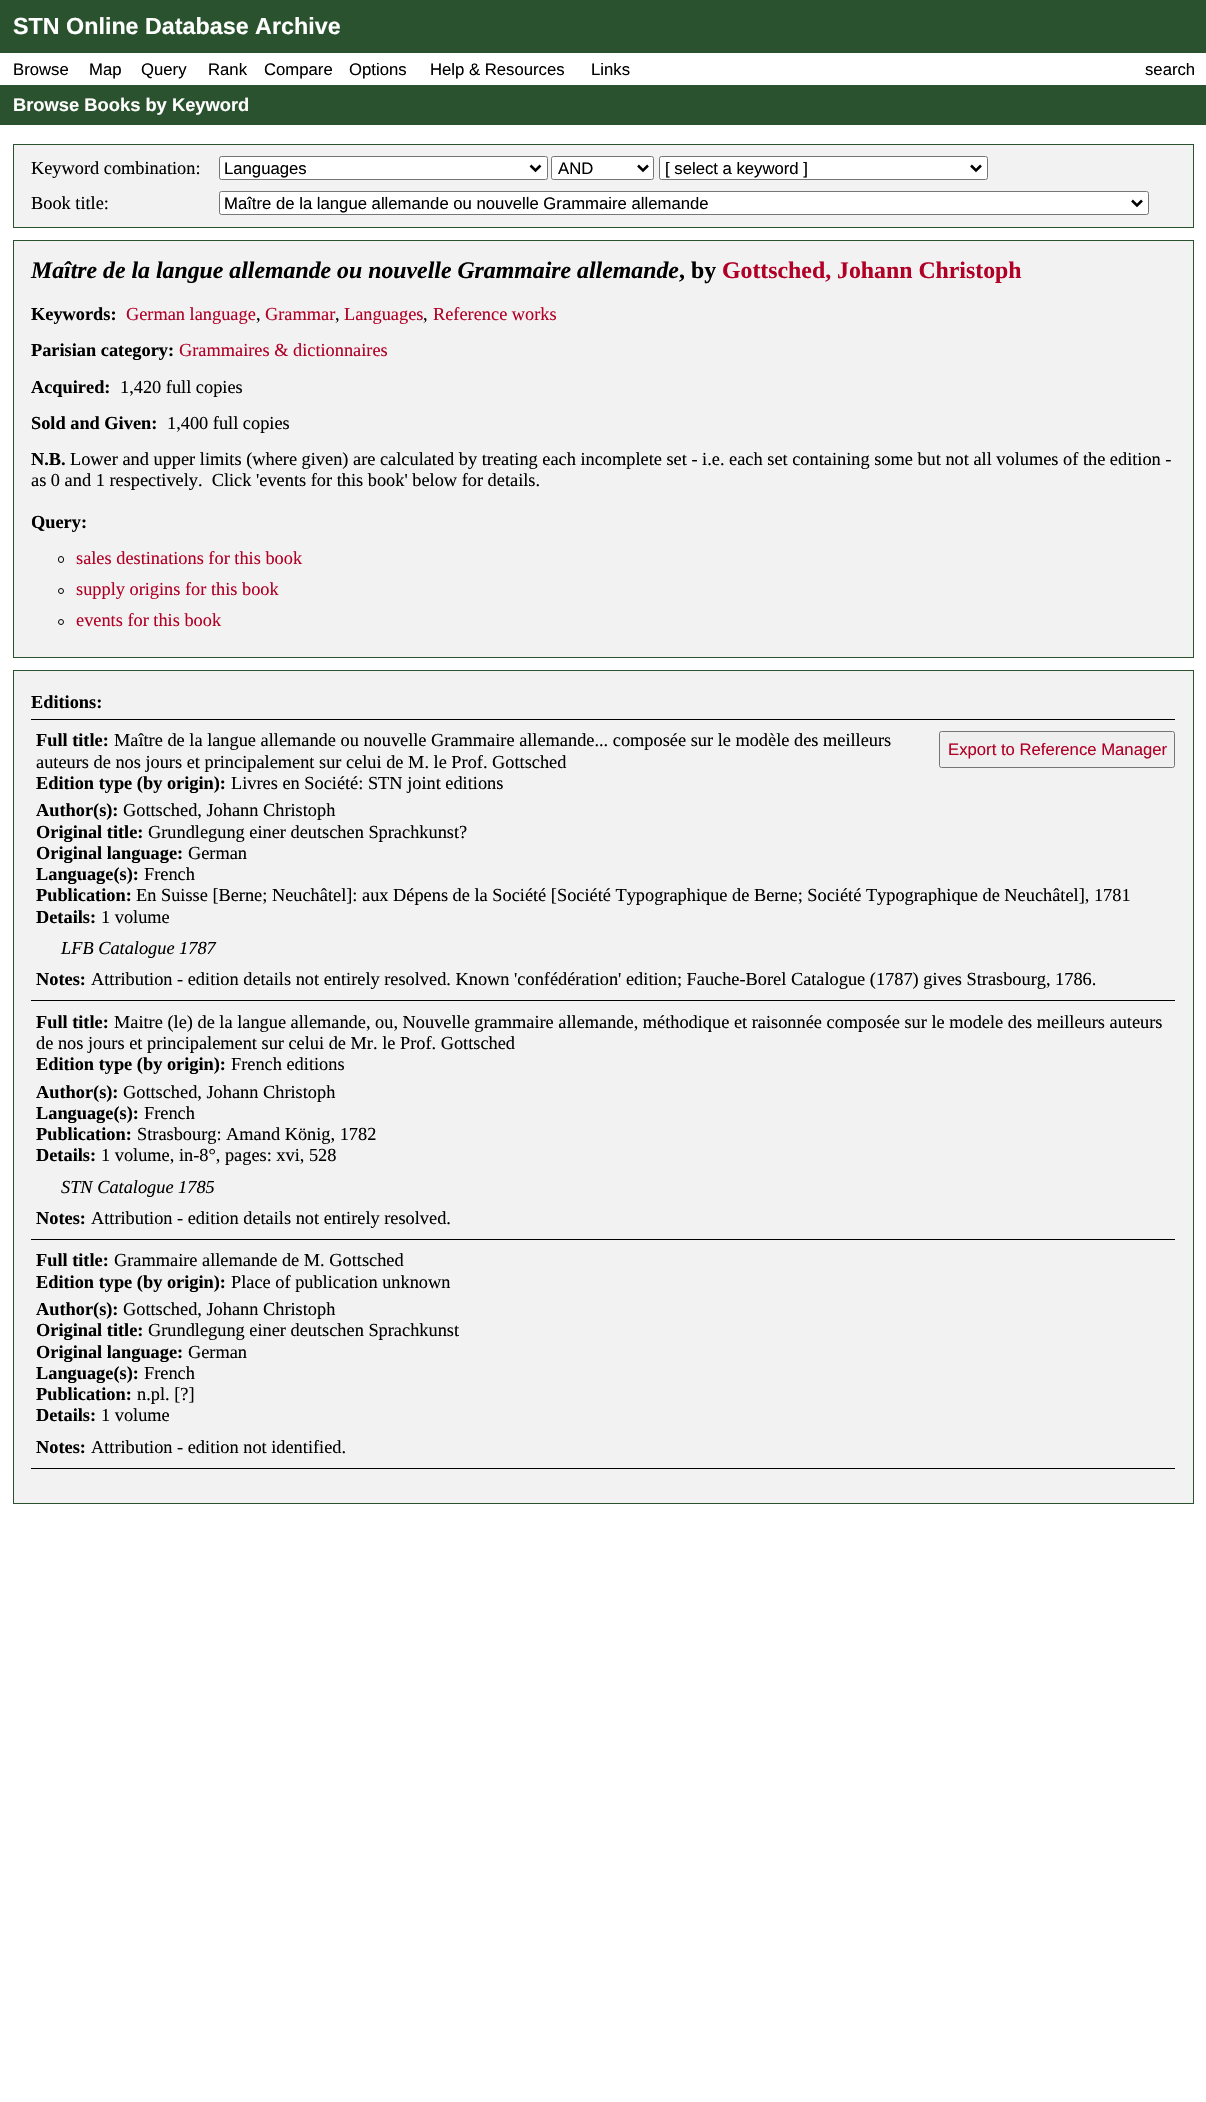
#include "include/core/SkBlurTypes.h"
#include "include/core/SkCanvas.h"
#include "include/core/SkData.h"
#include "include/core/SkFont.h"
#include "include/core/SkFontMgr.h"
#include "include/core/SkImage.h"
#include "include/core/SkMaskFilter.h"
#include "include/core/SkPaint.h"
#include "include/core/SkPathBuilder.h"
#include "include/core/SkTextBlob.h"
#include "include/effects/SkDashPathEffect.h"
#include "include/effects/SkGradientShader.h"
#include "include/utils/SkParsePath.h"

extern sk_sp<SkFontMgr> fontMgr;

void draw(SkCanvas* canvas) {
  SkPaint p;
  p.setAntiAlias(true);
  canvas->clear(SK_ColorWHITE);
  p.setColor(SkColorSetRGB(43, 82, 46));
  canvas->drawRect(SkRect::MakeLTRB(0, 0, 1206, 53), p);
  canvas->drawRect(SkRect::MakeLTRB(0, 85, 1206, 125), p);
  p.setColor(SkColorSetRGB(242, 242, 242));
  canvas->drawRect(SkRect::MakeLTRB(13.5f, 144.5f, 1193.5f, 227.5f), p);
  p.setStyle(SkPaint::kStroke_Style);
  p.setStrokeWidth(1);
  p.setColor(SkColorSetRGB(43, 82, 46));
  canvas->drawRect(SkRect::MakeLTRB(13.5f, 144.5f, 1193.5f, 227.5f), p);
  p.setStyle(SkPaint::kFill_Style);
  p.setColor(SK_ColorWHITE);
  canvas->drawRoundRect(SkRect::MakeLTRB(219.5f, 156.5f, 547.5f, 179.5f), 2, 2, p);
  p.setStyle(SkPaint::kStroke_Style);
  p.setColor(SkColorSetRGB(118, 118, 118));
  canvas->drawRoundRect(SkRect::MakeLTRB(219.5f, 156.5f, 547.5f, 179.5f), 2, 2, p);
  p.setStrokeWidth(2.5f);
  p.setColor(SK_ColorBLACK);
  canvas->drawPath(SkPathBuilder().moveTo(530.5f, 165.5f).lineTo(535.5f, 170.5f).lineTo(540.5f, 165.5f).detach(), p);
  p.setStyle(SkPaint::kFill_Style);
  p.setColor(SK_ColorWHITE);
  canvas->drawRoundRect(SkRect::MakeLTRB(551.5f, 156.5f, 653.5f, 179.5f), 2, 2, p);
  p.setStyle(SkPaint::kStroke_Style);
  p.setStrokeWidth(1);
  p.setColor(SkColorSetRGB(118, 118, 118));
  canvas->drawRoundRect(SkRect::MakeLTRB(551.5f, 156.5f, 653.5f, 179.5f), 2, 2, p);
  p.setStrokeWidth(2.5f);
  p.setColor(SK_ColorBLACK);
  canvas->drawPath(SkPathBuilder().moveTo(638, 165.5f).lineTo(643, 170.5f).lineTo(648, 165.5f).detach(), p);
  p.setStyle(SkPaint::kFill_Style);
  p.setColor(SK_ColorWHITE);
  canvas->drawRoundRect(SkRect::MakeLTRB(659.5f, 156.5f, 987.5f, 179.5f), 2, 2, p);
  p.setStyle(SkPaint::kStroke_Style);
  p.setStrokeWidth(1);
  p.setColor(SkColorSetRGB(118, 118, 118));
  canvas->drawRoundRect(SkRect::MakeLTRB(659.5f, 156.5f, 987.5f, 179.5f), 2, 2, p);
  p.setStrokeWidth(2.5f);
  p.setColor(SK_ColorBLACK);
  canvas->drawPath(SkPathBuilder().moveTo(971, 165.5f).lineTo(976, 170.5f).lineTo(981, 165.5f).detach(), p);
  p.setStyle(SkPaint::kFill_Style);
  p.setColor(SK_ColorWHITE);
  canvas->drawRoundRect(SkRect::MakeLTRB(219.5f, 191.5f, 1148.5f, 214.5f), 2, 2, p);
  p.setStyle(SkPaint::kStroke_Style);
  p.setStrokeWidth(1);
  p.setColor(SkColorSetRGB(118, 118, 118));
  canvas->drawRoundRect(SkRect::MakeLTRB(219.5f, 191.5f, 1148.5f, 214.5f), 2, 2, p);
  p.setStrokeWidth(2.5f);
  p.setColor(SK_ColorBLACK);
  canvas->drawPath(SkPathBuilder().moveTo(1132, 200.5f).lineTo(1137, 205.5f).lineTo(1142, 200.5f).detach(), p);
  p.setStyle(SkPaint::kFill_Style);
  p.setColor(SkColorSetRGB(242, 242, 242));
  canvas->drawRect(SkRect::MakeLTRB(13.5f, 240.5f, 1193.5f, 657.5f), p);
  p.setStyle(SkPaint::kStroke_Style);
  p.setStrokeWidth(1);
  p.setColor(SkColorSetRGB(43, 82, 46));
  canvas->drawRect(SkRect::MakeLTRB(13.5f, 240.5f, 1193.5f, 657.5f), p);
  p.setColor(SK_ColorBLACK);
  canvas->drawRoundRect(SkRect::MakeLTRB(58.5f, 556.5f, 63.5f, 562.5f), 2.5f, 2.5f, p);
  canvas->drawCircle(61, 591, 2.5f, p);
  canvas->drawCircle(61, 622, 2.5f, p);
  p.setStyle(SkPaint::kFill_Style);
  p.setColor(SkColorSetRGB(242, 242, 242));
  canvas->drawRect(SkRect::MakeLTRB(13.5f, 670.5f, 1193.5f, 1503.5f), p);
  p.setStyle(SkPaint::kStroke_Style);
  p.setColor(SkColorSetRGB(43, 82, 46));
  canvas->drawRect(SkRect::MakeLTRB(13.5f, 670.5f, 1193.5f, 1503.5f), p);
  p.setStyle(SkPaint::kFill_Style);
  p.setColor(SK_ColorBLACK);
  canvas->drawRect(SkRect::MakeLTRB(31, 719, 1175, 720), p);
  canvas->drawRect(SkRect::MakeLTRB(31, 1000, 1175, 1001), p);
  p.setColor(SkColorSetRGB(239, 239, 239));
  canvas->drawRoundRect(SkRect::MakeLTRB(939.5f, 731.5f, 1174.5f, 767.5f), 2, 2, p);
  p.setStyle(SkPaint::kStroke_Style);
  p.setColor(SkColorSetRGB(118, 118, 118));
  canvas->drawRoundRect(SkRect::MakeLTRB(939.5f, 731.5f, 1174.5f, 767.5f), 2, 2, p);
  p.setStyle(SkPaint::kFill_Style);
  p.setColor(SK_ColorBLACK);
  canvas->drawRect(SkRect::MakeLTRB(31, 1239, 1175, 1240), p);
  canvas->drawRect(SkRect::MakeLTRB(31, 1468, 1175, 1469), p);
  SkFont font1(fontMgr->matchFamilyStyle("Liberation Sans", SkFontStyle::Bold()), 23.3f);
  font1.setSubpixel(true);
  p.setColor(SK_ColorWHITE);
  canvas->drawString("STN Online Database Archive", 13, 34, font1, p);
  SkFont font2(fontMgr->matchFamilyStyle("Liberation Sans", SkFontStyle::Normal()), 16.7f);
  font2.setSubpixel(true);
  p.setColor(SK_ColorBLACK);
  canvas->drawString("Browse", 13, 75, font2, p);
  canvas->drawString("Map", 89, 75, font2, p);
  canvas->drawString("Query", 141, 75, font2, p);
  canvas->drawString("Rank", 208, 75, font2, p);
  canvas->drawString("Compare", 264, 75, font2, p);
  canvas->drawString("Options", 349, 75, font2, p);
  canvas->drawString("Help & Resources", 430, 75, font2, p);
  canvas->drawString("Links", 591, 75, font2, p);
  canvas->drawString("search", 1145, 75, font2, p);
  SkFont font3(fontMgr->matchFamilyStyle("Liberation Sans", SkFontStyle::Bold()), 18.33f);
  font3.setSubpixel(true);
  p.setColor(SK_ColorWHITE);
  canvas->drawString("Browse Books by Keyword", 13, 111, font3, p);
  SkFont font4(fontMgr->matchFamilyStyle("Liberation Serif", SkFontStyle::Normal()), 18.33f);
  font4.setSubpixel(true);
  p.setColor(SK_ColorBLACK);
  canvas->drawString("Keyword combination:", 31, 174, font4, p);
  canvas->drawString("Languages", 224, 174, font2, p);
  canvas->drawString("AND", 558, 174, font2, p);
  canvas->drawString("[ select a keyword ]", 665, 174, font2, p);
  canvas->drawString("Book title:", 31, 209, font4, p);
  canvas->drawString("Maître de la langue allemande ou nouvelle Grammaire allemande", 224, 209, font2, p);
  SkFont font5(fontMgr->matchFamilyStyle("Liberation Serif", SkFontStyle::BoldItalic()), 23.8f);
  font5.setSubpixel(true);
  canvas->drawString("Maître de la langue allemande ou nouvelle Grammaire allemande", 31, 278, font5, p);
  SkFont font6(fontMgr->matchFamilyStyle("Liberation Serif", SkFontStyle::Bold()), 23.8f);
  font6.setSubpixel(true);
  canvas->drawString(", by", 679, 278, font6, p);
  p.setColor(SkColorSetRGB(177, 0, 38));
  canvas->drawString("Gottsched, Johann Christoph", 722, 278, font6, p);
  SkFont font7(fontMgr->matchFamilyStyle("Liberation Serif", SkFontStyle::Bold()), 18.33f);
  font7.setSubpixel(true);
  p.setColor(SK_ColorBLACK);
  canvas->drawString("Keywords:", 31, 320, font7, p);
  p.setColor(SkColorSetRGB(177, 0, 38));
  canvas->drawString("German language", 126, 320, font4, p);
  p.setColor(SK_ColorBLACK);
  canvas->drawString(",", 256, 320, font4, p);
  p.setColor(SkColorSetRGB(177, 0, 38));
  canvas->drawString("Grammar", 265, 320, font4, p);
  p.setColor(SK_ColorBLACK);
  canvas->drawString(",", 335, 320, font4, p);
  p.setColor(SkColorSetRGB(177, 0, 38));
  canvas->drawString("Languages", 344, 320, font4, p);
  p.setColor(SK_ColorBLACK);
  canvas->drawString(",", 423, 320, font4, p);
  p.setColor(SkColorSetRGB(177, 0, 38));
  canvas->drawString("Reference works", 433, 320, font4, p);
  p.setColor(SK_ColorBLACK);
  canvas->drawString("Parisian category:", 31, 356, font7, p);
  p.setColor(SkColorSetRGB(177, 0, 38));
  canvas->drawString("Grammaires & dictionnaires", 179, 356, font4, p);
  p.setColor(SK_ColorBLACK);
  canvas->drawString("Acquired:", 31, 393, font7, p);
  canvas->drawString("1,420 full copies", 120, 393, font4, p);
  canvas->drawString("Sold and Given:", 31, 429, font7, p);
  canvas->drawString("1,400 full copies", 167, 429, font4, p);
  canvas->drawString("N.B.", 31, 465, font7, p);
  canvas->drawString("Lower and upper limits (where given) are calculated by treating each incomplete set - i.e. each set containing some but not all volumes of the edition -", 70, 465, font4, p);
  canvas->drawString("as 0 and 1 respectively.  Click 'events for this book' below for details.", 31, 486, font4, p);
  canvas->drawString("Query:", 31, 528, font7, p);
  p.setColor(SkColorSetRGB(177, 0, 38));
  canvas->drawString("sales destinations for this book", 76, 564, font4, p);
  canvas->drawString("supply origins for this book", 76, 595, font4, p);
  canvas->drawString("events for this book", 76, 626, font4, p);
  p.setColor(SK_ColorBLACK);
  canvas->drawString("Editions:", 31, 708, font7, p);
  canvas->drawString("Full title:", 36, 746, font7, p);
  canvas->drawString("Maître de la langue allemande ou nouvelle Grammaire allemande... composée sur le modèle des meilleurs", 114, 746, font4, p);
  canvas->drawString("auteurs de nos jours et principalement sur celui de M. le Prof. Gottsched", 36, 768, font4, p);
  canvas->drawString("Edition type (by origin):", 36, 789, font7, p);
  canvas->drawString("Livres en Société: STN joint editions", 231, 789, font4, p);
  canvas->drawString("Author(s):", 36, 816, font7, p);
  canvas->drawString("Gottsched, Johann Christoph", 123, 816, font4, p);
  canvas->drawString("Original title:", 36, 838, font7, p);
  canvas->drawString("Grundlegung einer deutschen Sprachkunst?", 148, 838, font4, p);
  canvas->drawString("Original language:", 36, 859, font7, p);
  canvas->drawString("German", 188, 859, font4, p);
  canvas->drawString("Language(s):", 36, 880, font7, p);
  canvas->drawString("French", 144, 880, font4, p);
  canvas->drawString("Publication:", 36, 901, font7, p);
  canvas->drawString("En Suisse [Berne; Neuchâtel]: aux Dépens de la Société [Société Typographique de Berne; Société Typographique de Neuchâtel], 1781", 136, 901, font4, p);
  canvas->drawString("Details:", 36, 923, font7, p);
  canvas->drawString("1 volume", 101, 923, font4, p);
  SkFont font8(fontMgr->matchFamilyStyle("Liberation Serif", SkFontStyle::Italic()), 18.33f);
  font8.setSubpixel(true);
  canvas->drawString("LFB Catalogue 1787", 61, 954, font8, p);
  canvas->drawString("Notes:", 36, 985, font7, p);
  canvas->drawString("Attribution - edition details not entirely resolved. Known 'confédération' edition; Fauche-Borel Catalogue (1787) gives Strasbourg, 1786.", 91, 985, font4, p);
  p.setColor(SkColorSetRGB(177, 0, 38));
  canvas->drawString("Export to Reference Manager", 948, 755, font2, p);
  p.setColor(SK_ColorBLACK);
  canvas->drawString("Full title:", 36, 1028, font7, p);
  canvas->drawString("Maitre (le) de la langue allemande, ou, Nouvelle grammaire allemande, méthodique et raisonnée composée sur le modele des meilleurs auteurs", 114, 1028, font4, p);
  canvas->drawString("de nos jours et principalement sur celui de Mr. le Prof. Gottsched", 36, 1049, font4, p);
  canvas->drawString("Edition type (by origin):", 36, 1070, font7, p);
  canvas->drawString("French editions", 231, 1070, font4, p);
  canvas->drawString("Author(s):", 36, 1098, font7, p);
  canvas->drawString("Gottsched, Johann Christoph", 123, 1098, font4, p);
  canvas->drawString("Language(s):", 36, 1119, font7, p);
  canvas->drawString("French", 144, 1119, font4, p);
  canvas->drawString("Publication:", 36, 1140, font7, p);
  canvas->drawString("Strasbourg: Amand König, 1782", 137, 1140, font4, p);
  canvas->drawString("Details:", 36, 1161, font7, p);
  canvas->drawString("1 volume, in-8°, pages: xvi, 528", 101, 1161, font4, p);
  canvas->drawString("STN Catalogue 1785", 61, 1193, font8, p);
  canvas->drawString("Notes:", 36, 1224, font7, p);
  canvas->drawString("Attribution - edition details not entirely resolved.", 91, 1224, font4, p);
  canvas->drawString("Full title:", 36, 1266, font7, p);
  canvas->drawString("Grammaire allemande de M. Gottsched", 114, 1266, font4, p);
  canvas->drawString("Edition type (by origin):", 36, 1288, font7, p);
  canvas->drawString("Place of publication unknown", 231, 1288, font4, p);
  canvas->drawString("Author(s):", 36, 1315, font7, p);
  canvas->drawString("Gottsched, Johann Christoph", 123, 1315, font4, p);
  canvas->drawString("Original title:", 36, 1336, font7, p);
  canvas->drawString("Grundlegung einer deutschen Sprachkunst", 148, 1336, font4, p);
  canvas->drawString("Original language:", 36, 1358, font7, p);
  canvas->drawString("German", 188, 1358, font4, p);
  canvas->drawString("Language(s):", 36, 1379, font7, p);
  canvas->drawString("French", 144, 1379, font4, p);
  canvas->drawString("Publication:", 36, 1400, font7, p);
  canvas->drawString("n.pl. [?]", 137, 1400, font4, p);
  canvas->drawString("Details:", 36, 1421, font7, p);
  canvas->drawString("1 volume", 101, 1421, font4, p);
  canvas->drawString("Notes:", 36, 1453, font7, p);
  canvas->drawString("Attribution - edition not identified.", 91, 1453, font4, p);
}
